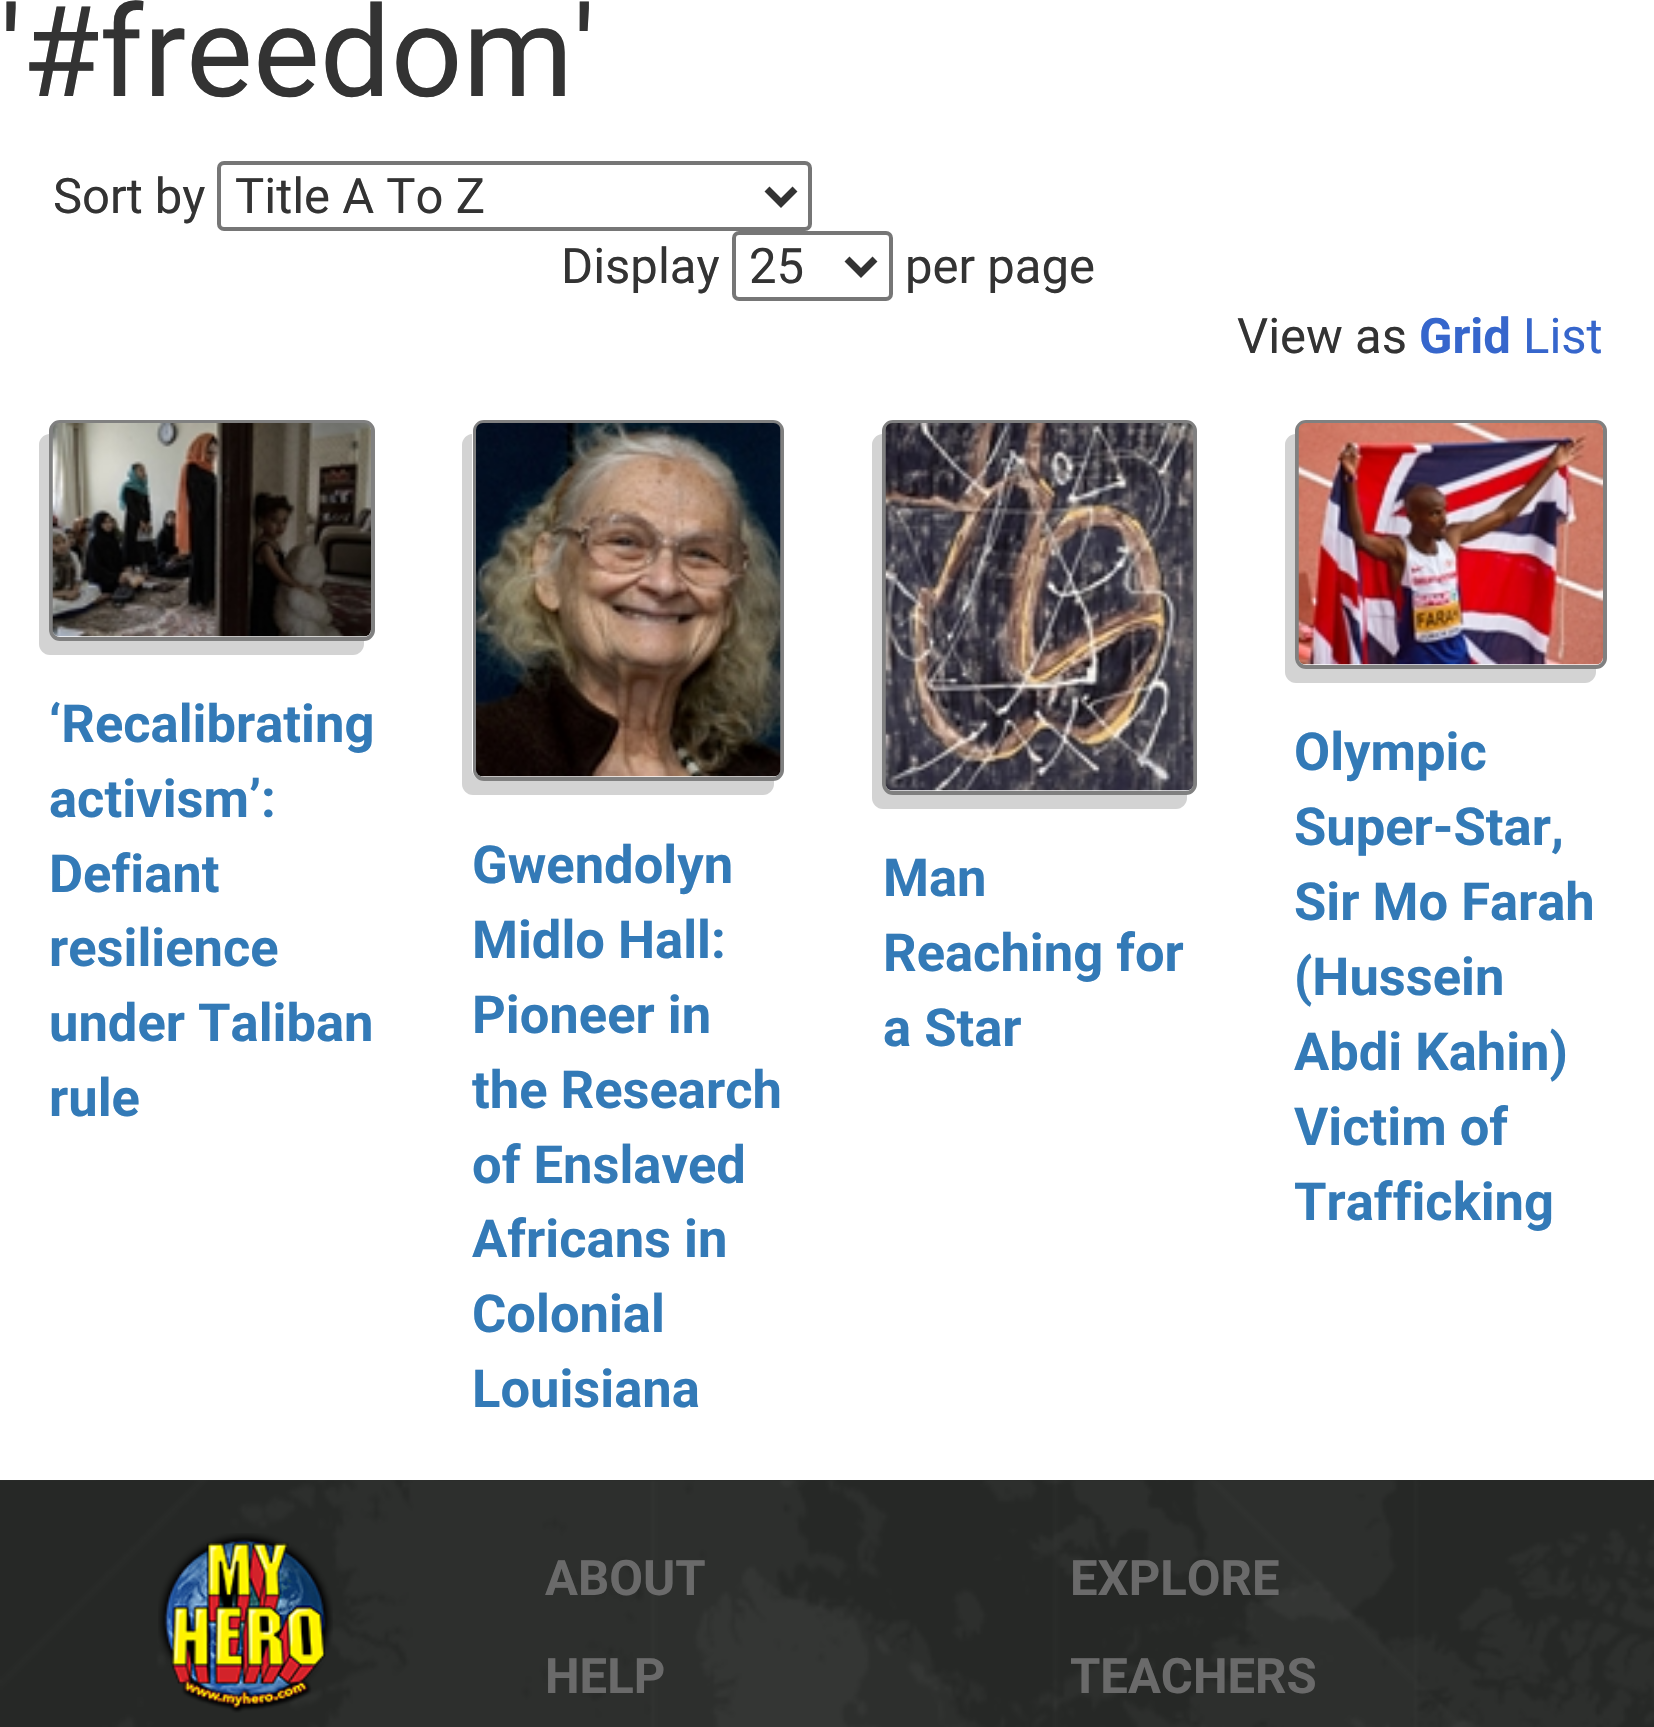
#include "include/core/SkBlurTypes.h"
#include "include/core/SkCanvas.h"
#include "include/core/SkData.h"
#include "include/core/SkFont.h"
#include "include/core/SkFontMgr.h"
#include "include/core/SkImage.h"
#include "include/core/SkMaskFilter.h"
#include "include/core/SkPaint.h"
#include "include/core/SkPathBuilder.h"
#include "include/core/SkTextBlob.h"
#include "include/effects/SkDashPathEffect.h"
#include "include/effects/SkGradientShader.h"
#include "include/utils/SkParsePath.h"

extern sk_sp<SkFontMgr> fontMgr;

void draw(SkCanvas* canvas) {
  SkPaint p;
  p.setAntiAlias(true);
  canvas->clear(SK_ColorWHITE);
  p.setStyle(SkPaint::kStroke_Style);
  p.setStrokeWidth(4);
  p.setColor(SkColorSetRGB(118, 118, 118));
  canvas->drawRoundRect(SkRect::MakeLTRB(219, 163, 810, 229), 5, 5, p);
  p.setStrokeWidth(7);
  p.setColor(SkColorSetRGB(51, 51, 51));
  canvas->drawPath(SkPathBuilder().moveTo(767, 189).lineTo(781, 203).lineTo(795, 189).detach(), p);
  p.setStrokeWidth(4);
  p.setColor(SkColorSetRGB(118, 118, 118));
  canvas->drawRoundRect(SkRect::MakeLTRB(734, 233, 891, 299), 5, 5, p);
  p.setStrokeWidth(7);
  p.setColor(SkColorSetRGB(51, 51, 51));
  canvas->drawPath(SkPathBuilder().moveTo(847, 259).lineTo(861, 273).lineTo(875, 259).detach(), p);
  p.setStyle(SkPaint::kFill_Style);
  p.setColor(SkColorSetRGB(211, 211, 211));
  canvas->drawPath(SkPathBuilder().moveTo(49, 434).cubicTo(43, 435, 39, 439, 39, 445).lineTo(39, 644).cubicTo(39, 650, 44, 655, 50, 655).lineTo(353, 655).cubicTo(359, 655, 364, 650, 364, 644).lineTo(364, 640).lineTo(60, 640).cubicTo(54, 640, 49, 636, 49, 630).close().detach(), p);
  p.setStyle(SkPaint::kStroke_Style);
  p.setStrokeWidth(4);
  p.setColor(SkColorSetRGB(128, 128, 128));
  canvas->drawRoundRect(SkRect::MakeLTRB(51, 422, 373, 639), 9, 9, p);
  canvas->drawImageRect(SkImages::DeferredFromEncodedData(SkData::MakeFromFileName("images/1.png")), SkRect::MakeLTRB(52, 423, 371, 637), SkSamplingOptions());
  p.setStyle(SkPaint::kFill_Style);
  p.setColor(SkColorSetRGB(211, 211, 211));
  canvas->drawPath(SkPathBuilder().moveTo(472, 434).cubicTo(467, 434, 462, 439, 462, 445).lineTo(462, 784).cubicTo(462, 790, 467, 795, 473, 795).lineTo(763, 795).cubicTo(769, 795, 774, 790, 774, 784).lineTo(774, 780).lineTo(483, 780).cubicTo(477, 780, 473, 776, 472, 770).close().detach(), p);
  p.setStyle(SkPaint::kStroke_Style);
  p.setColor(SkColorSetRGB(128, 128, 128));
  canvas->drawRoundRect(SkRect::MakeLTRB(475, 422, 782, 779), 9, 9, p);
  canvas->drawImageRect(SkImages::DeferredFromEncodedData(SkData::MakeFromFileName("images/2.png")), SkRect::MakeLTRB(476, 423, 781, 777), SkSamplingOptions());
  p.setStyle(SkPaint::kFill_Style);
  p.setColor(SkColorSetRGB(211, 211, 211));
  canvas->drawPath(SkPathBuilder().moveTo(882, 434).cubicTo(876, 435, 872, 439, 872, 445).lineTo(872, 798).cubicTo(872, 804, 877, 809, 883, 809).lineTo(1176, 809).cubicTo(1182, 809, 1187, 804, 1187, 798).lineTo(1187, 794).lineTo(892, 794).cubicTo(887, 794, 882, 790, 882, 784).close().detach(), p);
  p.setStyle(SkPaint::kStroke_Style);
  p.setColor(SkColorSetRGB(128, 128, 128));
  canvas->drawRoundRect(SkRect::MakeLTRB(884, 422, 1195, 793), 9, 9, p);
  canvas->drawImageRect(SkImages::DeferredFromEncodedData(SkData::MakeFromFileName("images/3.png")), SkRect::MakeLTRB(885, 423, 1194, 791), SkSamplingOptions());
  p.setStyle(SkPaint::kFill_Style);
  p.setColor(SkColorSetRGB(211, 211, 211));
  canvas->drawPath(SkPathBuilder().moveTo(1295, 434).cubicTo(1289, 435, 1285, 439, 1285, 445).lineTo(1285, 672).cubicTo(1285, 678, 1290, 683, 1296, 683).lineTo(1585, 683).cubicTo(1591, 683, 1596, 678, 1596, 672).lineTo(1596, 668).lineTo(1306, 668).cubicTo(1300, 668, 1295, 664, 1295, 658).close().detach(), p);
  p.setStyle(SkPaint::kStroke_Style);
  p.setColor(SkColorSetRGB(128, 128, 128));
  canvas->drawRoundRect(SkRect::MakeLTRB(1297, 422, 1605, 667), 9, 9, p);
  canvas->drawImageRect(SkImages::DeferredFromEncodedData(SkData::MakeFromFileName("images/4.png")), SkRect::MakeLTRB(1298, 423, 1603, 665), SkSamplingOptions());
  canvas->drawImageRect(SkImages::DeferredFromEncodedData(SkData::MakeFromFileName("images/5.png")), SkRect::MakeLTRB(0, 1480, 1654, 1727), SkSamplingOptions());
  canvas->drawImageRect(SkImages::DeferredFromEncodedData(SkData::MakeFromFileName("images/6.png")), SkRect::MakeLTRB(158, 1533, 333, 1713), SkSamplingOptions());
  SkFont font1(fontMgr->matchFamilyStyle("Roboto", SkFontStyle::Normal()), 126);
  font1.setSubpixel(true);
  p.setStyle(SkPaint::kFill_Style);
  p.setColor(SkColorSetRGB(51, 51, 51));
  canvas->drawString("'#freedom'", 0, 96, font1, p);
  SkFont font2(fontMgr->matchFamilyStyle("Roboto", SkFontStyle::Normal()), 49);
  font2.setSubpixel(true);
  canvas->drawString("Sort by", 53, 213, font2, p);
  canvas->drawString("Title A To Z", 235, 213, font2, p);
  canvas->drawString("Display", 561, 283, font2, p);
  canvas->drawString("25", 749, 283, font2, p);
  canvas->drawString("per page", 905, 283, font2, p);
  canvas->drawString("View as", 1237, 353, font2, p);
  SkFont font3(fontMgr->matchFamilyStyle("Roboto", SkFontStyle::Bold()), 49);
  font3.setSubpixel(true);
  p.setColor(SkColorSetRGB(54, 102, 204));
  canvas->drawString("Grid", 1419, 353, font3, p);
  canvas->drawString("List", 1523, 353, font2, p);
  SkFont font4(fontMgr->matchFamilyStyle("Roboto", SkFontStyle::Bold()), 52.5f);
  font4.setSubpixel(true);
  p.setColor(SkColorSetRGB(51, 122, 183));
  canvas->drawString("‘Recalibrating", 49, 742, font4, p);
  canvas->drawString("activism’:", 49, 817, font4, p);
  canvas->drawString("Defiant", 49, 892, font4, p);
  canvas->drawString("resilience", 49, 966, font4, p);
  canvas->drawString("under Taliban", 49, 1041, font4, p);
  canvas->drawString("rule", 49, 1116, font4, p);
  canvas->drawString("Gwendolyn", 472, 883, font4, p);
  canvas->drawString("Midlo Hall:", 472, 958, font4, p);
  canvas->drawString("Pioneer in", 472, 1033, font4, p);
  canvas->drawString("the Research", 472, 1108, font4, p);
  canvas->drawString("of Enslaved", 472, 1183, font4, p);
  canvas->drawString("Africans in", 472, 1257, font4, p);
  canvas->drawString("Colonial", 472, 1332, font4, p);
  canvas->drawString("Louisiana", 472, 1407, font4, p);
  canvas->drawString("Man", 883, 896, font4, p);
  canvas->drawString("Reaching for", 883, 971, font4, p);
  canvas->drawString("a Star", 883, 1046, font4, p);
  canvas->drawString("Olympic", 1294, 770, font4, p);
  canvas->drawString("Super-Star,", 1294, 845, font4, p);
  canvas->drawString("Sir Mo Farah", 1294, 920, font4, p);
  canvas->drawString("(Hussein", 1294, 995, font4, p);
  canvas->drawString("Abdi Kahin)", 1294, 1070, font4, p);
  canvas->drawString("Victim of", 1294, 1145, font4, p);
  canvas->drawString("Trafficking", 1294, 1220, font4, p);
  p.setColor(SkColorSetRGB(106, 106, 106));
  canvas->drawString("ABOUT", 545, 1595, font3, p);
  canvas->drawString("HELP", 545, 1693, font3, p);
  canvas->drawString("EXPLORE", 1070, 1595, font3, p);
  canvas->drawString("TEACHERS", 1070, 1693, font3, p);
}
